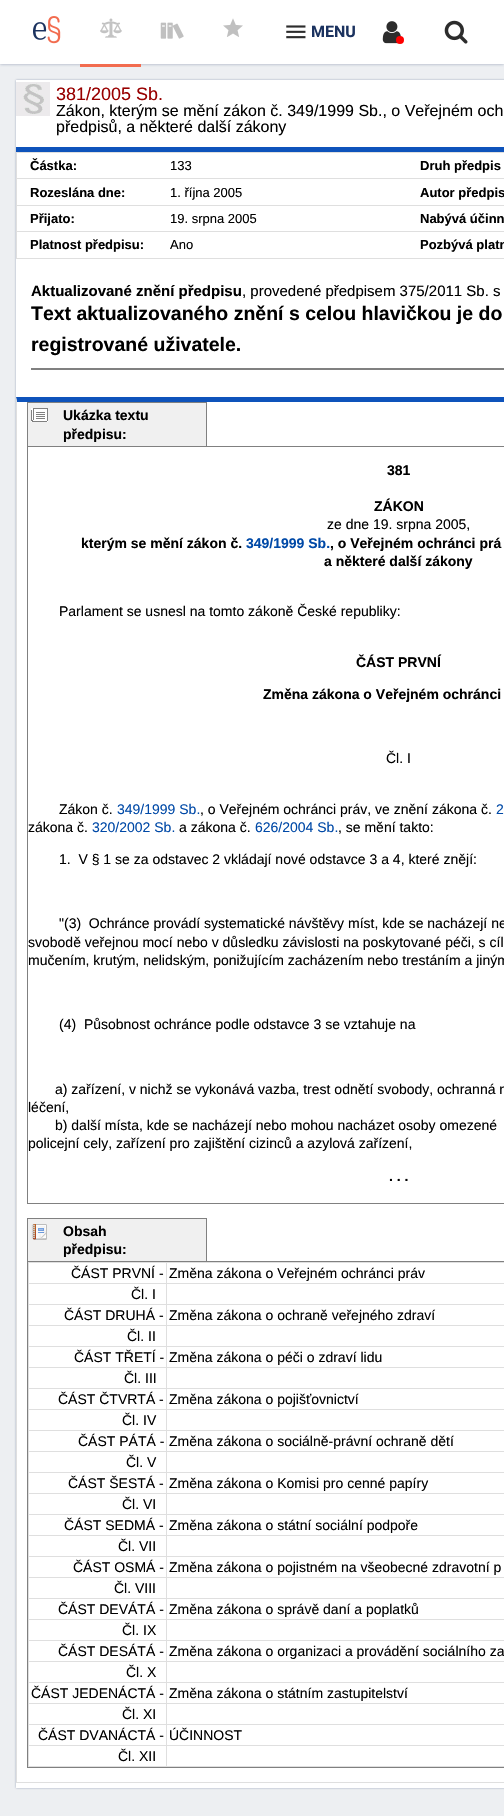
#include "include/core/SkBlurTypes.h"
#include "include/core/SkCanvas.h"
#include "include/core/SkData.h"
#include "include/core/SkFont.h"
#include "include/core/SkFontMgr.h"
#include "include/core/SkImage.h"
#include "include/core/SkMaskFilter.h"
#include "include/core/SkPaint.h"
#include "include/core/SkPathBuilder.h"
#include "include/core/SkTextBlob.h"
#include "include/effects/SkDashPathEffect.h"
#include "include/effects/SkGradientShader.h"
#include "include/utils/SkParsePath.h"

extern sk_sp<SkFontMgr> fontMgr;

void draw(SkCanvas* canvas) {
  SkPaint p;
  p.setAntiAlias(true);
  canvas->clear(SkColorSetRGB(237, 239, 242));
  p.setColor(SkColorSetARGB(102, 27, 50, 95));
  p.setMaskFilter(SkMaskFilter::MakeBlur(kNormal_SkBlurStyle, 1.5f));
  canvas->drawRect(SkRect::MakeLTRB(0, 0, 504, 64), p);
  p.setMaskFilter(nullptr);
  p.setColor(SK_ColorWHITE);
  canvas->drawRect(SkRect::MakeLTRB(0, 0, 504, 64), p);
  canvas->drawImageRect(SkImages::DeferredFromEncodedData(SkData::MakeFromFileName("images/1.png")), SkRect::MakeLTRB(33, 16, 61, 44), SkSamplingOptions());
  p.setColor(SkColorSetRGB(242, 108, 79));
  canvas->drawRect(SkRect::MakeLTRB(80, 64, 141, 67), p);
  canvas->drawImageRect(SkImages::DeferredFromEncodedData(SkData::MakeFromFileName("images/2.png")), SkRect::MakeLTRB(100, 18, 122, 38), SkSamplingOptions());
  canvas->drawImageRect(SkImages::DeferredFromEncodedData(SkData::MakeFromFileName("images/3.png")), SkRect::MakeLTRB(160, 22, 184, 39), SkSamplingOptions());
  canvas->drawImageRect(SkImages::DeferredFromEncodedData(SkData::MakeFromFileName("images/4.png")), SkRect::MakeLTRB(223, 18, 243, 37), SkSamplingOptions());
  canvas->drawImageRect(SkImages::DeferredFromEncodedData(SkData::MakeFromFileName("images/5.png")), SkRect::MakeLTRB(286, 25, 306, 39), SkSamplingOptions());
  canvas->drawImageRect(SkImages::DeferredFromEncodedData(SkData::MakeFromFileName("images/6.png")), SkRect::MakeLTRB(382, 21, 401, 44), SkSamplingOptions());
  p.setColor(SkColorSetRGB(255, 0, 0));
  canvas->drawCircle(400, 40, 4, p);
  canvas->drawImageRect(SkImages::DeferredFromEncodedData(SkData::MakeFromFileName("images/7.png")), SkRect::MakeLTRB(444, 20, 468, 44), SkSamplingOptions());
  p.setColor(SkColorSetARGB(102, 27, 50, 95));
  p.setMaskFilter(SkMaskFilter::MakeBlur(kNormal_SkBlurStyle, 1));
  canvas->drawRect(SkRect::MakeLTRB(16, 80, 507, 1788), p);
  p.setMaskFilter(nullptr);
  p.setColor(SK_ColorWHITE);
  canvas->drawRect(SkRect::MakeLTRB(16, 80, 504, 1788), p);
  canvas->drawImageRect(SkImages::DeferredFromEncodedData(SkData::MakeFromFileName("images/8.png")), SkRect::MakeLTRB(16, 82, 50, 116), SkSamplingOptions());
  p.setColor(SkColorSetRGB(14, 83, 187));
  canvas->drawRect(SkRect::MakeLTRB(16, 147, 504, 152), p);
  p.setColor(SkColorSetRGB(223, 223, 223));
  canvas->drawRect(SkRect::MakeLTRB(16, 152, 504, 153), p);
  canvas->drawRect(SkRect::MakeLTRB(16, 258, 504, 259), p);
  canvas->drawRect(SkRect::MakeLTRB(16, 152, 17, 259), p);
  canvas->drawRect(SkRect::MakeLTRB(16, 178, 504, 179), p);
  canvas->drawRect(SkRect::MakeLTRB(16, 205, 504, 206), p);
  canvas->drawRect(SkRect::MakeLTRB(16, 231, 504, 232), p);
  p.setColor(SkColorSetRGB(128, 128, 128));
  canvas->drawRect(SkRect::MakeLTRB(31, 368, 504, 370), p);
  p.setColor(SkColorSetRGB(14, 83, 187));
  canvas->drawPath(SkPathBuilder().moveTo(16, 397).lineTo(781, 397).lineTo(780, 402).lineTo(17, 402).close().detach(), p);
  p.setColor(SkColorSetRGB(223, 223, 223));
  canvas->drawRect(SkRect::MakeLTRB(16, 1782, 504, 1783), p);
  canvas->drawPath(SkPathBuilder().moveTo(16, 1783).lineTo(16, 397).lineTo(17, 402).lineTo(17, 1782).close().detach(), p);
  p.setColor(SkColorSetRGB(240, 240, 240));
  canvas->drawRect(SkRect::MakeLTRB(28, 403, 206, 446), p);
  canvas->drawImageRect(SkImages::DeferredFromEncodedData(SkData::MakeFromFileName("images/9.png")), SkRect::MakeLTRB(31, 408, 48, 422), SkSamplingOptions());
  p.setColor(SkColorSetRGB(128, 128, 128));
  canvas->drawRect(SkRect::MakeLTRB(27, 402, 207, 403), p);
  canvas->drawRect(SkRect::MakeLTRB(206, 402, 207, 446), p);
  canvas->drawRect(SkRect::MakeLTRB(27, 402, 28, 446), p);
  p.setStyle(SkPaint::kStroke_Style);
  p.setStrokeWidth(1);
  canvas->drawRect(SkRect::MakeLTRB(27.5f, 446.5f, 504.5f, 1203.5f), p);
  p.setStyle(SkPaint::kFill_Style);
  p.setColor(SkColorSetRGB(240, 240, 240));
  canvas->drawRect(SkRect::MakeLTRB(28, 1219, 206, 1261), p);
  canvas->drawImageRect(SkImages::DeferredFromEncodedData(SkData::MakeFromFileName("images/10.png")), SkRect::MakeLTRB(31, 1224, 47, 1240), SkSamplingOptions());
  p.setColor(SkColorSetRGB(128, 128, 128));
  canvas->drawRect(SkRect::MakeLTRB(27, 1218, 207, 1219), p);
  canvas->drawRect(SkRect::MakeLTRB(206, 1218, 207, 1261), p);
  canvas->drawRect(SkRect::MakeLTRB(27, 1218, 28, 1261), p);
  p.setStyle(SkPaint::kStroke_Style);
  canvas->drawRect(SkRect::MakeLTRB(27.5f, 1261.5f, 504.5f, 1767.5f), p);
  p.setStyle(SkPaint::kFill_Style);
  p.setColor(SkColorSetRGB(223, 223, 223));
  canvas->drawRect(SkRect::MakeLTRB(166, 1262, 504, 1263), p);
  canvas->drawRect(SkRect::MakeLTRB(166, 1283, 504, 1284), p);
  canvas->drawRect(SkRect::MakeLTRB(166, 1304, 504, 1305), p);
  canvas->drawRect(SkRect::MakeLTRB(166, 1325, 504, 1326), p);
  canvas->drawRect(SkRect::MakeLTRB(166, 1346, 504, 1347), p);
  canvas->drawRect(SkRect::MakeLTRB(166, 1367, 504, 1368), p);
  canvas->drawRect(SkRect::MakeLTRB(166, 1388, 504, 1389), p);
  canvas->drawRect(SkRect::MakeLTRB(166, 1409, 504, 1410), p);
  canvas->drawRect(SkRect::MakeLTRB(166, 1430, 504, 1431), p);
  canvas->drawRect(SkRect::MakeLTRB(166, 1451, 504, 1452), p);
  canvas->drawRect(SkRect::MakeLTRB(166, 1472, 504, 1473), p);
  canvas->drawRect(SkRect::MakeLTRB(166, 1493, 504, 1494), p);
  canvas->drawRect(SkRect::MakeLTRB(166, 1514, 504, 1515), p);
  canvas->drawRect(SkRect::MakeLTRB(166, 1535, 504, 1536), p);
  canvas->drawRect(SkRect::MakeLTRB(166, 1556, 504, 1557), p);
  canvas->drawRect(SkRect::MakeLTRB(166, 1577, 504, 1578), p);
  canvas->drawRect(SkRect::MakeLTRB(166, 1598, 504, 1599), p);
  canvas->drawRect(SkRect::MakeLTRB(166, 1619, 504, 1620), p);
  canvas->drawRect(SkRect::MakeLTRB(166, 1640, 504, 1641), p);
  canvas->drawRect(SkRect::MakeLTRB(166, 1661, 504, 1662), p);
  canvas->drawRect(SkRect::MakeLTRB(166, 1682, 504, 1683), p);
  canvas->drawRect(SkRect::MakeLTRB(166, 1703, 504, 1704), p);
  canvas->drawRect(SkRect::MakeLTRB(166, 1724, 504, 1725), p);
  canvas->drawRect(SkRect::MakeLTRB(166, 1745, 504, 1746), p);
  canvas->drawRect(SkRect::MakeLTRB(166, 1766, 504, 1767), p);
  canvas->drawRect(SkRect::MakeLTRB(166, 1745, 167, 1767), p);
  canvas->drawRect(SkRect::MakeLTRB(28, 1745, 167, 1746), p);
  canvas->drawRect(SkRect::MakeLTRB(166, 1724, 167, 1746), p);
  canvas->drawRect(SkRect::MakeLTRB(28, 1724, 167, 1725), p);
  canvas->drawRect(SkRect::MakeLTRB(166, 1703, 167, 1725), p);
  canvas->drawRect(SkRect::MakeLTRB(28, 1703, 167, 1704), p);
  canvas->drawRect(SkRect::MakeLTRB(166, 1682, 167, 1704), p);
  canvas->drawRect(SkRect::MakeLTRB(28, 1682, 167, 1683), p);
  canvas->drawRect(SkRect::MakeLTRB(166, 1661, 167, 1683), p);
  canvas->drawRect(SkRect::MakeLTRB(28, 1661, 167, 1662), p);
  canvas->drawRect(SkRect::MakeLTRB(166, 1640, 167, 1662), p);
  canvas->drawRect(SkRect::MakeLTRB(28, 1640, 167, 1641), p);
  canvas->drawRect(SkRect::MakeLTRB(166, 1619, 167, 1641), p);
  canvas->drawRect(SkRect::MakeLTRB(28, 1619, 167, 1620), p);
  canvas->drawRect(SkRect::MakeLTRB(166, 1598, 167, 1620), p);
  canvas->drawRect(SkRect::MakeLTRB(28, 1598, 167, 1599), p);
  canvas->drawRect(SkRect::MakeLTRB(166, 1577, 167, 1599), p);
  canvas->drawRect(SkRect::MakeLTRB(28, 1577, 167, 1578), p);
  canvas->drawRect(SkRect::MakeLTRB(166, 1556, 167, 1578), p);
  canvas->drawRect(SkRect::MakeLTRB(28, 1556, 167, 1557), p);
  canvas->drawRect(SkRect::MakeLTRB(166, 1535, 167, 1557), p);
  canvas->drawRect(SkRect::MakeLTRB(28, 1535, 167, 1536), p);
  canvas->drawRect(SkRect::MakeLTRB(166, 1514, 167, 1536), p);
  canvas->drawRect(SkRect::MakeLTRB(28, 1514, 167, 1515), p);
  canvas->drawRect(SkRect::MakeLTRB(166, 1493, 167, 1515), p);
  canvas->drawRect(SkRect::MakeLTRB(28, 1493, 167, 1494), p);
  canvas->drawRect(SkRect::MakeLTRB(166, 1472, 167, 1494), p);
  canvas->drawRect(SkRect::MakeLTRB(28, 1472, 167, 1473), p);
  canvas->drawRect(SkRect::MakeLTRB(166, 1451, 167, 1473), p);
  canvas->drawRect(SkRect::MakeLTRB(28, 1451, 167, 1452), p);
  canvas->drawRect(SkRect::MakeLTRB(166, 1430, 167, 1452), p);
  canvas->drawRect(SkRect::MakeLTRB(28, 1430, 167, 1431), p);
  canvas->drawRect(SkRect::MakeLTRB(166, 1409, 167, 1431), p);
  canvas->drawRect(SkRect::MakeLTRB(28, 1409, 167, 1410), p);
  canvas->drawRect(SkRect::MakeLTRB(166, 1388, 167, 1410), p);
  canvas->drawRect(SkRect::MakeLTRB(28, 1388, 167, 1389), p);
  canvas->drawRect(SkRect::MakeLTRB(166, 1367, 167, 1389), p);
  canvas->drawRect(SkRect::MakeLTRB(28, 1367, 167, 1368), p);
  canvas->drawRect(SkRect::MakeLTRB(166, 1346, 167, 1368), p);
  canvas->drawRect(SkRect::MakeLTRB(28, 1346, 167, 1347), p);
  canvas->drawRect(SkRect::MakeLTRB(166, 1325, 167, 1347), p);
  canvas->drawRect(SkRect::MakeLTRB(28, 1325, 167, 1326), p);
  canvas->drawRect(SkRect::MakeLTRB(166, 1304, 167, 1326), p);
  canvas->drawRect(SkRect::MakeLTRB(28, 1304, 167, 1305), p);
  canvas->drawRect(SkRect::MakeLTRB(166, 1283, 167, 1305), p);
  canvas->drawRect(SkRect::MakeLTRB(28, 1283, 167, 1284), p);
  canvas->drawRect(SkRect::MakeLTRB(166, 1262, 167, 1284), p);
  canvas->drawRect(SkRect::MakeLTRB(28, 1262, 167, 1263), p);
  canvas->drawRect(SkRect::MakeLTRB(28, 1766, 167, 1767), p);
  canvas->drawRect(SkRect::MakeLTRB(28, 1745, 29, 1767), p);
  canvas->drawRect(SkRect::MakeLTRB(28, 1724, 29, 1746), p);
  canvas->drawRect(SkRect::MakeLTRB(28, 1703, 29, 1725), p);
  canvas->drawRect(SkRect::MakeLTRB(28, 1682, 29, 1704), p);
  canvas->drawRect(SkRect::MakeLTRB(28, 1661, 29, 1683), p);
  canvas->drawRect(SkRect::MakeLTRB(28, 1640, 29, 1662), p);
  canvas->drawRect(SkRect::MakeLTRB(28, 1619, 29, 1641), p);
  canvas->drawRect(SkRect::MakeLTRB(28, 1598, 29, 1620), p);
  canvas->drawRect(SkRect::MakeLTRB(28, 1577, 29, 1599), p);
  canvas->drawRect(SkRect::MakeLTRB(28, 1556, 29, 1578), p);
  canvas->drawRect(SkRect::MakeLTRB(28, 1535, 29, 1557), p);
  canvas->drawRect(SkRect::MakeLTRB(28, 1514, 29, 1536), p);
  canvas->drawRect(SkRect::MakeLTRB(28, 1493, 29, 1515), p);
  canvas->drawRect(SkRect::MakeLTRB(28, 1472, 29, 1494), p);
  canvas->drawRect(SkRect::MakeLTRB(28, 1451, 29, 1473), p);
  canvas->drawRect(SkRect::MakeLTRB(28, 1430, 29, 1452), p);
  canvas->drawRect(SkRect::MakeLTRB(28, 1409, 29, 1431), p);
  canvas->drawRect(SkRect::MakeLTRB(28, 1388, 29, 1410), p);
  canvas->drawRect(SkRect::MakeLTRB(28, 1367, 29, 1389), p);
  canvas->drawRect(SkRect::MakeLTRB(28, 1346, 29, 1368), p);
  canvas->drawRect(SkRect::MakeLTRB(28, 1325, 29, 1347), p);
  canvas->drawRect(SkRect::MakeLTRB(28, 1304, 29, 1326), p);
  canvas->drawRect(SkRect::MakeLTRB(28, 1283, 29, 1305), p);
  canvas->drawRect(SkRect::MakeLTRB(28, 1262, 29, 1284), p);
  SkFont font1(fontMgr->matchFamilyStyle("Roboto", SkFontStyle::Bold()), 16);
  font1.setSubpixel(true);
  p.setColor(SkColorSetRGB(27, 50, 95));
  canvas->drawString("MENU", 311, 37, font1, p);
  SkFont font2(fontMgr->matchFamilyStyle("Liberation Sans", SkFontStyle::Normal()), 18);
  font2.setSubpixel(true);
  p.setColor(SkColorSetRGB(152, 0, 0));
  canvas->drawString("381/2005 Sb.", 56, 100, font2, p);
  SkFont font3(fontMgr->matchFamilyStyle("Liberation Sans", SkFontStyle::Normal()), 16);
  font3.setSubpixel(true);
  p.setColor(SK_ColorBLACK);
  canvas->drawString("Zákon, kterým se mění zákon č. 349/1999 Sb., o Veřejném och", 56, 116, font3, p);
  canvas->drawString("předpisů, a některé další zákony", 56, 132, font3, p);
  SkFont font4(fontMgr->matchFamilyStyle("Liberation Sans", SkFontStyle::Bold()), 13);
  font4.setSubpixel(true);
  canvas->drawString("Částka:", 30, 170, font4, p);
  SkFont font5(fontMgr->matchFamilyStyle("Liberation Sans", SkFontStyle::Normal()), 13);
  font5.setSubpixel(true);
  canvas->drawString("133", 170, 170, font5, p);
  canvas->drawString("Druh předpis", 420, 170, font4, p);
  canvas->drawString("Rozeslána dne:", 30, 197, font4, p);
  canvas->drawString("1. října 2005", 170, 197, font5, p);
  canvas->drawString("Autor předpis", 420, 197, font4, p);
  canvas->drawString("Přijato:", 30, 223, font4, p);
  canvas->drawString("19. srpna 2005", 170, 223, font5, p);
  canvas->drawString("Nabývá účinn", 420, 223, font4, p);
  canvas->drawString("Platnost předpisu:", 30, 249, font4, p);
  canvas->drawString("Ano", 170, 249, font5, p);
  canvas->drawString("Pozbývá platn", 420, 249, font4, p);
  SkFont font6(fontMgr->matchFamilyStyle("Liberation Sans", SkFontStyle::Bold()), 15);
  font6.setSubpixel(true);
  canvas->drawString("Aktualizované znění předpisu", 31, 296, font6, p);
  SkFont font7(fontMgr->matchFamilyStyle("Liberation Sans", SkFontStyle::Normal()), 15);
  font7.setSubpixel(true);
  canvas->drawString(", provedené předpisem 375/2011 Sb. s", 242, 296, font7, p);
  SkFont font8(fontMgr->matchFamilyStyle("Liberation Sans", SkFontStyle::Bold()), 19.5f);
  font8.setSubpixel(true);
  canvas->drawString("Text aktualizovaného znění s celou hlavičkou je do", 31, 320, font8, p);
  canvas->drawString("registrované uživatele.", 31, 351, font8, p);
  SkFont font9(fontMgr->matchFamilyStyle("Liberation Sans", SkFontStyle::Bold()), 14);
  font9.setSubpixel(true);
  canvas->drawString("Ukázka textu", 63, 420, font9, p);
  canvas->drawString("předpisu:", 63, 439, font9, p);
  canvas->drawString("381", 387, 475, font9, p);
  canvas->drawString("ZÁKON", 374, 511, font9, p);
  SkFont font10(fontMgr->matchFamilyStyle("Liberation Sans", SkFontStyle::Normal()), 14);
  font10.setSubpixel(true);
  canvas->drawString("ze dne 19. srpna 2005,", 327, 529, font10, p);
  canvas->drawString("kterým se mění zákon č.", 81, 548, font9, p);
  p.setColor(SkColorSetRGB(0, 73, 167));
  canvas->drawString("349/1999 Sb.", 246, 548, font9, p);
  p.setColor(SK_ColorBLACK);
  canvas->drawString(", o Veřejném ochránci prá", 330, 548, font9, p);
  canvas->drawString("a některé další zákony", 324, 566, font9, p);
  canvas->drawString("Parlament se usnesl na tomto zákoně České republiky:", 59, 616, font10, p);
  canvas->drawString("ČÁST PRVNÍ", 356, 667, font9, p);
  canvas->drawString("Změna zákona o Veřejném ochránci", 263, 699, font9, p);
  canvas->drawString("Čl. I", 386, 763, font10, p);
  canvas->drawString("Zákon č.", 59, 814, font10, p);
  p.setColor(SkColorSetRGB(0, 73, 167));
  canvas->drawString("349/1999 Sb.", 117, 814, font10, p);
  p.setColor(SK_ColorBLACK);
  canvas->drawString(", o Veřejném ochránci práv, ve znění zákona č.", 200, 814, font10, p);
  p.setColor(SkColorSetRGB(0, 73, 167));
  canvas->drawString("2", 496, 814, font10, p);
  p.setColor(SK_ColorBLACK);
  canvas->drawString("zákona č.", 28, 832, font10, p);
  p.setColor(SkColorSetRGB(0, 73, 167));
  canvas->drawString("320/2002 Sb.", 92, 832, font10, p);
  p.setColor(SK_ColorBLACK);
  canvas->drawString("a zákona č.", 179, 832, font10, p);
  p.setColor(SkColorSetRGB(0, 73, 167));
  canvas->drawString("626/2004 Sb.", 255, 832, font10, p);
  p.setColor(SK_ColorBLACK);
  canvas->drawString(", se mění takto:", 338, 832, font10, p);
  canvas->drawString("1.  V § 1 se za odstavec 2 vkládají nové odstavce 3 a 4, které znějí:", 59, 864, font10, p);
  canvas->drawString("\"(3)  Ochránce provádí systematické návštěvy míst, kde se nacházejí ne", 59, 928, font10, p);
  canvas->drawString("svobodě veřejnou mocí nebo v důsledku závislosti na poskytované péči, s cíl", 28, 947, font10, p);
  canvas->drawString("mučením, krutým, nelidským, ponižujícím zacházením nebo trestáním a jiným", 28, 965, font10, p);
  canvas->drawString("(4)  Působnost ochránce podle odstavce 3 se vztahuje na", 59, 1029, font10, p);
  canvas->drawString("a) zařízení, v nichž se vykonává vazba, trest odnětí svobody, ochranná n", 55, 1094, font10, p);
  canvas->drawString("léčení,", 28, 1112, font10, p);
  canvas->drawString("b) další místa, kde se nacházejí nebo mohou nacházet osoby omezené", 55, 1130, font10, p);
  canvas->drawString("policejní cely, zařízení pro zajištění cizinců a azylová zařízení,", 28, 1148, font10, p);
  canvas->drawString(". . .", 389, 1181, font9, p);
  canvas->drawString("Obsah", 63, 1236, font9, p);
  canvas->drawString("předpisu:", 63, 1254, font9, p);
  canvas->drawString("ČÁST PRVNÍ -", 71, 1278, font10, p);
  canvas->drawString("Změna zákona o Veřejném ochránci práv", 169, 1278, font10, p);
  canvas->drawString("Čl. I", 131, 1299, font10, p);
  canvas->drawString("ČÁST DRUHÁ -", 64, 1320, font10, p);
  canvas->drawString("Změna zákona o ochraně veřejného zdraví", 169, 1320, font10, p);
  canvas->drawString("Čl. II", 127, 1341, font10, p);
  canvas->drawString("ČÁST TŘETÍ -", 74, 1362, font10, p);
  canvas->drawString("Změna zákona o péči o zdraví lidu", 169, 1362, font10, p);
  canvas->drawString("Čl. III", 124, 1383, font10, p);
  canvas->drawString("ČÁST ČTVRTÁ -", 58, 1404, font10, p);
  canvas->drawString("Změna zákona o pojišťovnictví", 169, 1404, font10, p);
  canvas->drawString("Čl. IV", 122, 1425, font10, p);
  canvas->drawString("ČÁST PÁTÁ -", 78, 1446, font10, p);
  canvas->drawString("Změna zákona o sociálně-právní ochraně dětí", 169, 1446, font10, p);
  canvas->drawString("Čl. V", 126, 1467, font10, p);
  canvas->drawString("ČÁST ŠESTÁ -", 68, 1488, font10, p);
  canvas->drawString("Změna zákona o Komisi pro cenné papíry", 169, 1488, font10, p);
  canvas->drawString("Čl. VI", 122, 1509, font10, p);
  canvas->drawString("ČÁST SEDMÁ -", 64, 1530, font10, p);
  canvas->drawString("Změna zákona o státní sociální podpoře", 169, 1530, font10, p);
  canvas->drawString("Čl. VII", 118, 1551, font10, p);
  canvas->drawString("ČÁST OSMÁ -", 73, 1572, font10, p);
  canvas->drawString("Změna zákona o pojistném na všeobecné zdravotní p", 169, 1572, font10, p);
  canvas->drawString("Čl. VIII", 114, 1593, font10, p);
  canvas->drawString("ČÁST DEVÁTÁ -", 58, 1614, font10, p);
  canvas->drawString("Změna zákona o správě daní a poplatků", 169, 1614, font10, p);
  canvas->drawString("Čl. IX", 122, 1635, font10, p);
  canvas->drawString("ČÁST DESÁTÁ -", 58, 1656, font10, p);
  canvas->drawString("Změna zákona o organizaci a provádění sociálního za", 169, 1656, font10, p);
  canvas->drawString("Čl. X", 126, 1677, font10, p);
  canvas->drawString("ČÁST JEDENÁCTÁ -", 31, 1698, font10, p);
  canvas->drawString("Změna zákona o státním zastupitelství", 169, 1698, font10, p);
  canvas->drawString("Čl. XI", 122, 1719, font10, p);
  canvas->drawString("ČÁST DVANÁCTÁ -", 38, 1740, font10, p);
  canvas->drawString("ÚČINNOST", 169, 1740, font10, p);
  canvas->drawString("Čl. XII", 118, 1761, font10, p);
}
